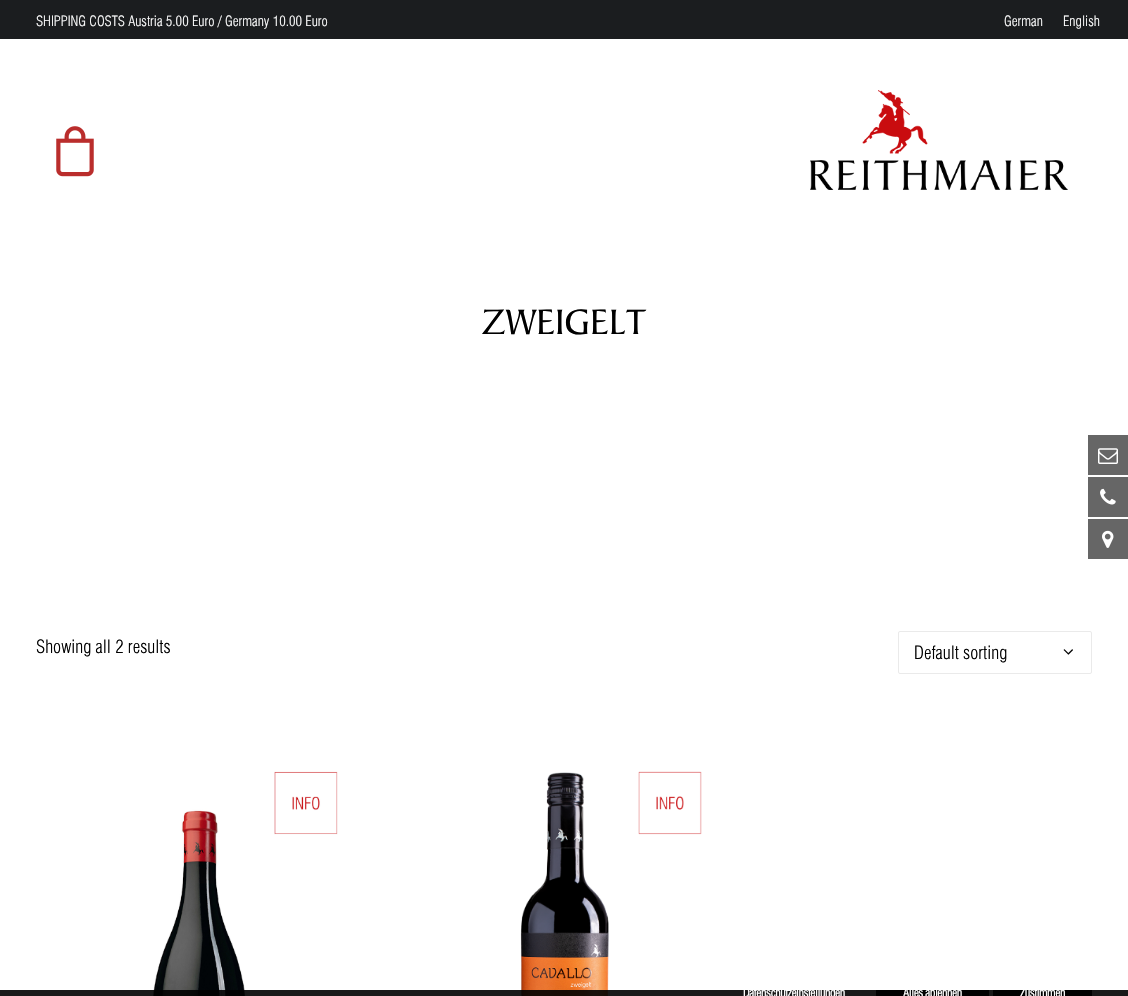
#include "include/core/SkBlurTypes.h"
#include "include/core/SkCanvas.h"
#include "include/core/SkData.h"
#include "include/core/SkFont.h"
#include "include/core/SkFontMgr.h"
#include "include/core/SkImage.h"
#include "include/core/SkMaskFilter.h"
#include "include/core/SkPaint.h"
#include "include/core/SkPathBuilder.h"
#include "include/core/SkTextBlob.h"
#include "include/effects/SkDashPathEffect.h"
#include "include/effects/SkGradientShader.h"
#include "include/utils/SkParsePath.h"

extern sk_sp<SkFontMgr> fontMgr;

void draw(SkCanvas* canvas) {
  SkPaint p;
  p.setAntiAlias(true);
  auto spacedText = [&](const char* s, float x, float y, const SkFont& font, const SkPaint& ink, float letter, float word) {
    std::vector<SkGlyphID> glyphs(font.countText(s, strlen(s), SkTextEncoding::kUTF8));
    std::vector<float> xs(glyphs.size());
    font.textToGlyphs(s, strlen(s), SkTextEncoding::kUTF8, glyphs);
    font.getXPos(glyphs, xs, x);
    float extra = 0;
    for (size_t i = 0; i < glyphs.size(); i++) {
      xs[i] += extra;
      extra += letter + word * (glyphs[i] == font.unicharToGlyph(' '));
    }
    canvas->drawTextBlob(SkTextBlob::MakeFromPosHGlyphs(glyphs, xs, y, font), 0, 0, ink);
  };
  canvas->clear(SK_ColorWHITE);
  p.setColor(SkColorSetRGB(27, 29, 31));
  canvas->drawRect(SkRect::MakeLTRB(0, 0, 1128, 39), p);
  canvas->drawImageRect(SkImages::DeferredFromEncodedData(SkData::MakeFromFileName("images/1.png")), SkRect::MakeLTRB(56, 126, 94, 177), SkSamplingOptions());
  canvas->drawImageRect(SkImages::DeferredFromEncodedData(SkData::MakeFromFileName("images/2.png")), SkRect::MakeLTRB(810, 90, 1068, 190), SkSamplingOptions());
  canvas->drawImageRect(SkImages::DeferredFromEncodedData(SkData::MakeFromFileName("images/3.png")), SkRect::MakeLTRB(1063, 649, 1073, 655), SkSamplingOptions());
  p.setStyle(SkPaint::kStroke_Style);
  p.setStrokeWidth(1);
  p.setColor(SkColorSetRGB(234, 234, 234));
  canvas->drawRoundRect(SkRect::MakeLTRB(898.5f, 631.5f, 1091.5f, 673.5f), 1.5f, 1.5f, p);
  canvas->drawImageRect(SkImages::DeferredFromEncodedData(SkData::MakeFromFileName("images/4.png")), SkRect::MakeLTRB(153, 771, 338, 996), SkSamplingOptions());
  canvas->drawImageRect(SkImages::DeferredFromEncodedData(SkData::MakeFromFileName("images/5.png")), SkRect::MakeLTRB(520, 771, 702, 996), SkSamplingOptions());
  p.setStyle(SkPaint::kFill_Style);
  p.setColor(SkColorSetRGB(102, 102, 102));
  canvas->drawRect(SkRect::MakeLTRB(1088, 435, 1128, 475), p);
  canvas->drawImageRect(SkImages::DeferredFromEncodedData(SkData::MakeFromFileName("images/6.png")), SkRect::MakeLTRB(1098, 448, 1118, 464), SkSamplingOptions());
  canvas->drawRect(SkRect::MakeLTRB(1088, 477, 1128, 517), p);
  canvas->drawImageRect(SkImages::DeferredFromEncodedData(SkData::MakeFromFileName("images/7.png")), SkRect::MakeLTRB(1100, 488, 1116, 505), SkSamplingOptions());
  canvas->drawRect(SkRect::MakeLTRB(1088, 519, 1128, 559), p);
  canvas->drawImageRect(SkImages::DeferredFromEncodedData(SkData::MakeFromFileName("images/8.png")), SkRect::MakeLTRB(1102, 530, 1114, 548), SkSamplingOptions());
  p.setColor(SkColorSetARGB(230, 0, 0, 0));
  canvas->drawRect(SkRect::MakeLTRB(0, 990, 1128, 996), p);
  p.setColor(SK_ColorBLACK);
  canvas->drawRect(SkRect::MakeLTRB(876, 990, 989, 996), p);
  canvas->drawRect(SkRect::MakeLTRB(993, 990, 1092, 996), p);
  SkFont font1(fontMgr->matchFamilyStyle("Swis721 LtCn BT", SkFontStyle(300, SkFontStyle::kNormal_Width, SkFontStyle::kUpright_Slant)), 14);
  font1.setSubpixel(true);
  p.setColor(SK_ColorWHITE);
  canvas->drawString("SHIPPING COSTS Austria 5.00 Euro / Germany 10.00 Euro", 36, 26, font1, p);
  canvas->drawString("German", 1004, 26, font1, p);
  canvas->drawString("English", 1063, 26, font1, p);
  SkFont font2(fontMgr->matchFamilyStyle("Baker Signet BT", SkFontStyle::Normal()), 38);
  font2.setSubpixel(true);
  p.setColor(SK_ColorBLACK);
  canvas->drawString("ZWEIGELT", 482, 334, font2, p);
  SkFont font3(fontMgr->matchFamilyStyle("Swis721 LtCn BT", SkFontStyle(300, SkFontStyle::kNormal_Width, SkFontStyle::kUpright_Slant)), 18);
  font3.setSubpixel(true);
  canvas->drawString("Showing all 2 results", 36, 653, font3, p);
  canvas->drawString("Default sorting", 914, 659, font3, p);
  canvas->save();
  canvas->clipRect(SkRect::MakeLTRB(0, 990, 1128, 996));
  SkFont font4(fontMgr->matchFamilyStyle("Swis721 LtCn BT", SkFontStyle::Bold()), 12);
  font4.setSubpixel(true);
  p.setColor(SK_ColorWHITE);
  spacedText("Datenschutzeinstellungen", 743, 997, font4, p, -0.3f, 0);
  spacedText("Alles ablehnen", 903, 997, font4, p, -0.3f, 0);
  spacedText("Zustimmen", 1020, 997, font4, p, -0.3f, 0);
  canvas->restore();
}
